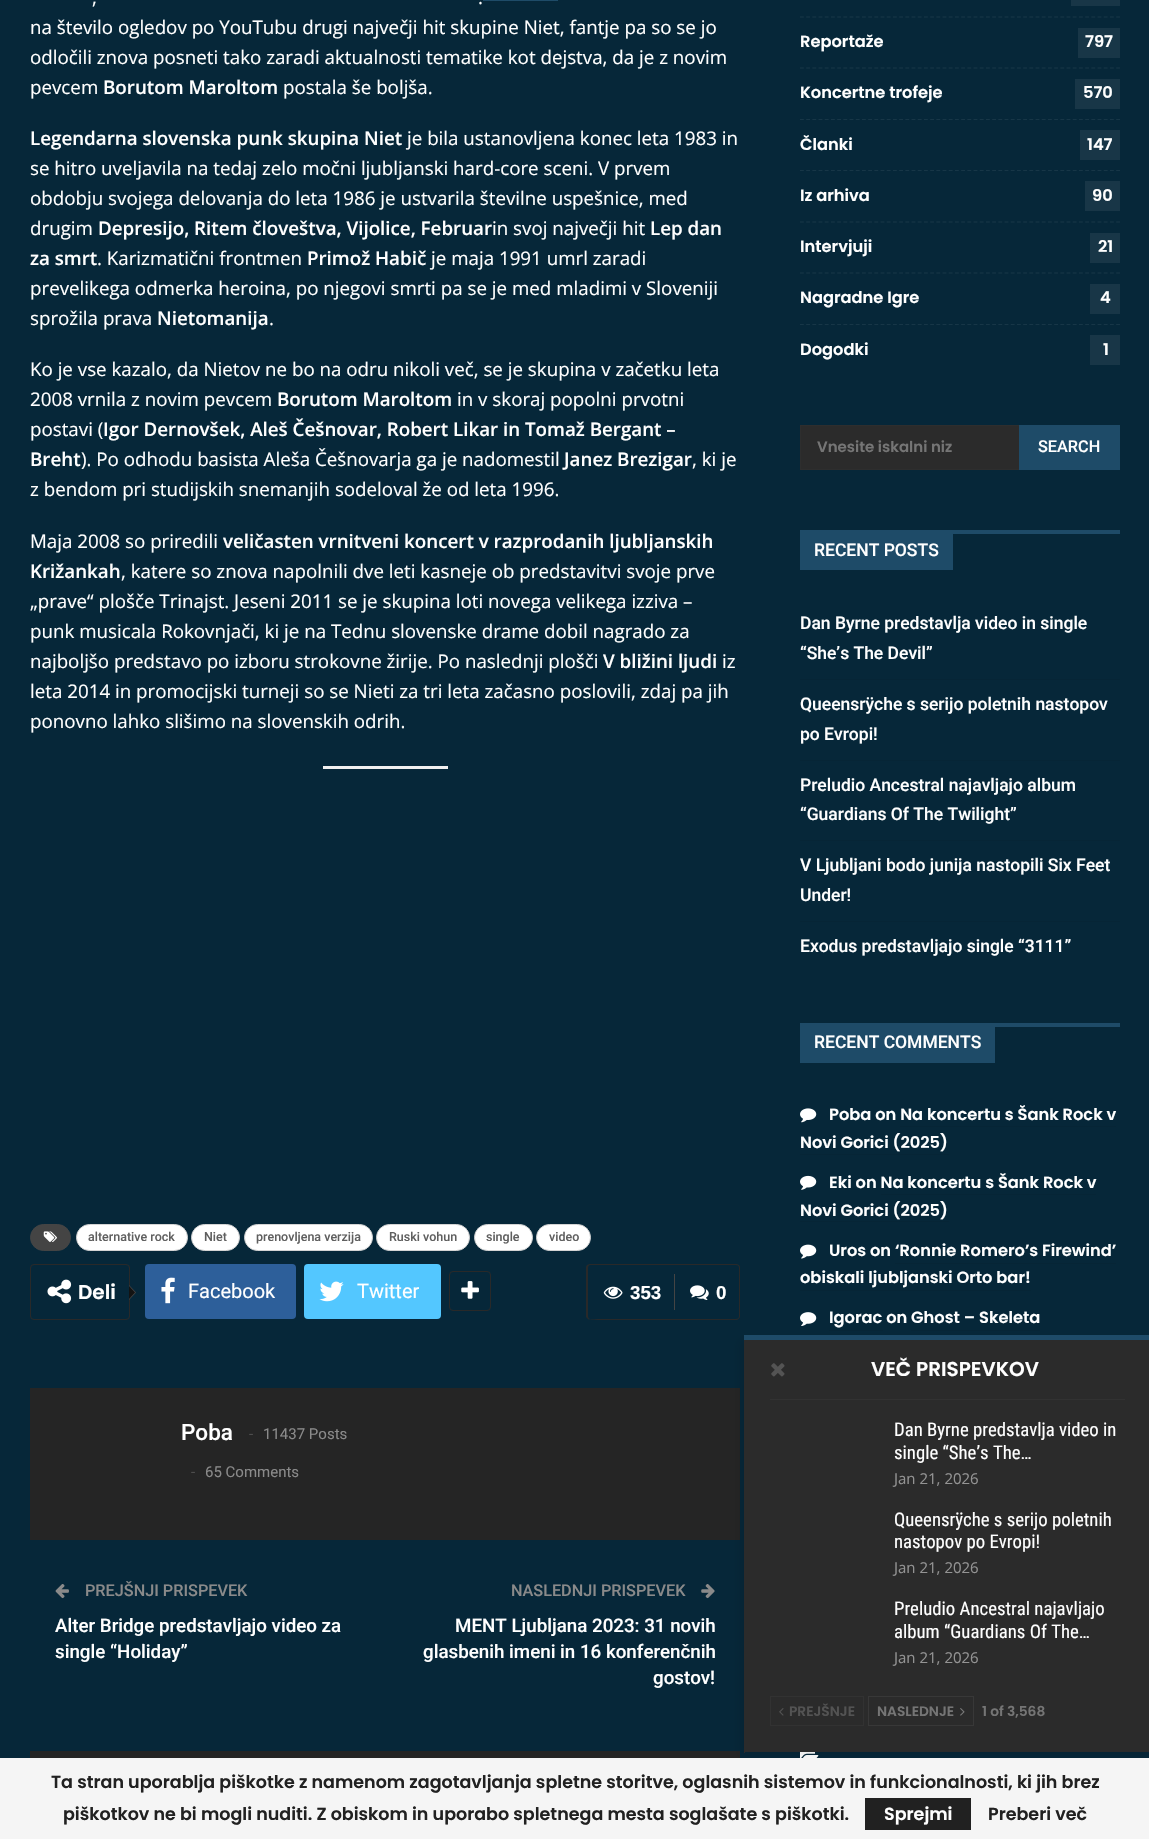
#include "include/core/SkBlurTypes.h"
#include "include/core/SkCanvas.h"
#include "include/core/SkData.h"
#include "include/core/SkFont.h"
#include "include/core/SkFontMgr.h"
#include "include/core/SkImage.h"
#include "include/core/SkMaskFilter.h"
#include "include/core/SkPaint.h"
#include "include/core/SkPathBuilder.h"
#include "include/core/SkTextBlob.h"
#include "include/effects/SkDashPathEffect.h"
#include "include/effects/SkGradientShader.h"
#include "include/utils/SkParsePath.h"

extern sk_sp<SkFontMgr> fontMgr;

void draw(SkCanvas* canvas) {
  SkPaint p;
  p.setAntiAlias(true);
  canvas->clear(SkColorSetRGB(6, 39, 57));
  p.setColor(SkColorSetRGB(30, 75, 104));
  canvas->drawRect(SkRect::MakeLTRB(483, 0, 558, 1), p);
  p.setColor(SkColorSetRGB(240, 240, 240));
  canvas->drawRect(SkRect::MakeLTRB(323, 766, 448, 769), p);
  p.setColor(SkColorSetRGB(68, 68, 68));
  canvas->drawRoundRect(SkRect::MakeLTRB(30.5f, 1224.5f, 70.5f, 1250.5f), 13, 13, p);
  p.setStyle(SkPaint::kStroke_Style);
  p.setStrokeWidth(1);
  canvas->drawRoundRect(SkRect::MakeLTRB(30.5f, 1224.5f, 70.5f, 1250.5f), 13, 13, p);
  canvas->drawImageRect(SkImages::DeferredFromEncodedData(SkData::MakeFromFileName("images/1.png")), SkRect::MakeLTRB(43, 1231, 57, 1242), SkSamplingOptions());
  p.setStyle(SkPaint::kFill_Style);
  p.setColor(SK_ColorWHITE);
  canvas->drawRoundRect(SkRect::MakeLTRB(76.5f, 1224.5f, 187.5f, 1250.5f), 13, 13, p);
  p.setStyle(SkPaint::kStroke_Style);
  p.setColor(SkColorSetRGB(212, 212, 212));
  canvas->drawRoundRect(SkRect::MakeLTRB(76.5f, 1224.5f, 187.5f, 1250.5f), 13, 13, p);
  p.setStyle(SkPaint::kFill_Style);
  p.setColor(SK_ColorWHITE);
  canvas->drawRoundRect(SkRect::MakeLTRB(191.5f, 1224.5f, 239.5f, 1250.5f), 13, 13, p);
  p.setStyle(SkPaint::kStroke_Style);
  p.setColor(SkColorSetRGB(212, 212, 212));
  canvas->drawRoundRect(SkRect::MakeLTRB(191.5f, 1224.5f, 239.5f, 1250.5f), 13, 13, p);
  p.setStyle(SkPaint::kFill_Style);
  p.setColor(SK_ColorWHITE);
  canvas->drawRoundRect(SkRect::MakeLTRB(244.5f, 1224.5f, 372.5f, 1250.5f), 13, 13, p);
  p.setStyle(SkPaint::kStroke_Style);
  p.setColor(SkColorSetRGB(212, 212, 212));
  canvas->drawRoundRect(SkRect::MakeLTRB(244.5f, 1224.5f, 372.5f, 1250.5f), 13, 13, p);
  p.setStyle(SkPaint::kFill_Style);
  p.setColor(SK_ColorWHITE);
  canvas->drawRoundRect(SkRect::MakeLTRB(376.5f, 1224.5f, 469.5f, 1250.5f), 13, 13, p);
  p.setStyle(SkPaint::kStroke_Style);
  p.setColor(SkColorSetRGB(212, 212, 212));
  canvas->drawRoundRect(SkRect::MakeLTRB(376.5f, 1224.5f, 469.5f, 1250.5f), 13, 13, p);
  p.setStyle(SkPaint::kFill_Style);
  p.setColor(SK_ColorWHITE);
  canvas->drawRoundRect(SkRect::MakeLTRB(474.5f, 1224.5f, 532.5f, 1250.5f), 13, 13, p);
  p.setStyle(SkPaint::kStroke_Style);
  p.setColor(SkColorSetRGB(212, 212, 212));
  canvas->drawRoundRect(SkRect::MakeLTRB(474.5f, 1224.5f, 532.5f, 1250.5f), 13, 13, p);
  p.setStyle(SkPaint::kFill_Style);
  p.setColor(SK_ColorWHITE);
  canvas->drawRoundRect(SkRect::MakeLTRB(536.5f, 1224.5f, 590.5f, 1250.5f), 13, 13, p);
  p.setStyle(SkPaint::kStroke_Style);
  p.setColor(SkColorSetRGB(212, 212, 212));
  canvas->drawRoundRect(SkRect::MakeLTRB(536.5f, 1224.5f, 590.5f, 1250.5f), 13, 13, p);
  p.setColor(SkColorSetRGB(41, 41, 41));
  canvas->drawRoundRect(SkRect::MakeLTRB(30.5f, 1264.5f, 129.5f, 1319.5f), 3.5f, 3.5f, p);
  canvas->drawImageRect(SkImages::DeferredFromEncodedData(SkData::MakeFromFileName("images/2.png")), SkRect::MakeLTRB(47, 1279, 72, 1304), SkSamplingOptions());
  p.setStyle(SkPaint::kFill_Style);
  p.setColor(SkColorSetRGB(68, 68, 68));
  canvas->drawPath(SkPathBuilder().moveTo(129, 1300).lineTo(129, 1285).lineTo(136, 1292.5f).close().detach(), p);
  p.setColor(SkColorSetRGB(19, 19, 19));
  canvas->drawPath(SkPathBuilder().moveTo(129, 1299).lineTo(129, 1286).lineTo(135, 1292.5f).close().detach(), p);
  p.setColor(SkColorSetRGB(45, 95, 154));
  canvas->drawRoundRect(SkRect::MakeLTRB(145, 1264, 296, 1319), 4, 4, p);
  canvas->drawImageRect(SkImages::DeferredFromEncodedData(SkData::MakeFromFileName("images/3.png")), SkRect::MakeLTRB(161, 1277, 175, 1304), SkSamplingOptions());
  p.setColor(SkColorSetRGB(83, 199, 255));
  canvas->drawRoundRect(SkRect::MakeLTRB(304, 1264, 441, 1319), 4, 4, p);
  canvas->drawImageRect(SkImages::DeferredFromEncodedData(SkData::MakeFromFileName("images/4.png")), SkRect::MakeLTRB(319, 1281, 344, 1302), SkSamplingOptions());
  p.setStyle(SkPaint::kStroke_Style);
  p.setColor(SkColorSetRGB(41, 41, 41));
  canvas->drawRoundRect(SkRect::MakeLTRB(449.5f, 1271.5f, 490.5f, 1310.5f), 3.5f, 3.5f, p);
  canvas->drawImageRect(SkImages::DeferredFromEncodedData(SkData::MakeFromFileName("images/5.png")), SkRect::MakeLTRB(461, 1281, 479, 1299), SkSamplingOptions());
  canvas->save();
  canvas->clipRect(SkRect::MakeLTRB(586, 1264, 740, 1320));
  p.setStyle(SkPaint::kFill_Style);
  canvas->drawPath(SkPathBuilder(SkPathFillType::kEvenOdd).moveTo(590, 1264).lineTo(674, 1264).lineTo(674, 1320).cubicTo(665, 1320, 590, 1321, 588, 1319).lineTo(586, 1317).lineTo(586, 1267).lineTo(587, 1265).close().moveTo(590, 1265).lineTo(674, 1265).lineTo(674, 1319).lineTo(590, 1319).cubicTo(589, 1319, 588, 1318, 588, 1316).lineTo(588, 1268).cubicTo(588, 1266, 589, 1265, 590, 1265).close().detach(), p);
  canvas->restore();
  canvas->drawImageRect(SkImages::DeferredFromEncodedData(SkData::MakeFromFileName("images/6.png")), SkRect::MakeLTRB(603, 1286, 623, 1299), SkSamplingOptions());
  canvas->drawPath(SkPathBuilder(SkPathFillType::kEvenOdd).moveTo(674, 1264).lineTo(736, 1264).cubicTo(738, 1264, 740, 1265, 740, 1268).lineTo(740, 1316).cubicTo(740, 1318, 738, 1320, 736, 1320).lineTo(674, 1320).close().moveTo(674, 1265).lineTo(736, 1265).cubicTo(738, 1265, 739, 1266, 739, 1268).lineTo(739, 1316).cubicTo(739, 1318, 738, 1319, 736, 1319).lineTo(674, 1319).close().detach(), p);
  p.setColor(SkColorSetRGB(68, 68, 68));
  canvas->drawRect(SkRect::MakeLTRB(674, 1274, 675, 1310), p);
  canvas->drawImageRect(SkImages::DeferredFromEncodedData(SkData::MakeFromFileName("images/7.png")), SkRect::MakeLTRB(690, 1285, 709, 1300), SkSamplingOptions());
  p.setColor(SkColorSetRGB(37, 37, 37));
  canvas->drawRect(SkRect::MakeLTRB(30, 1388, 740, 1540), p);
  canvas->drawImageRect(SkImages::DeferredFromEncodedData(SkData::MakeFromFileName("images/8.png")), SkRect::MakeLTRB(55, 1584, 69, 1599), SkSamplingOptions());
  canvas->drawImageRect(SkImages::DeferredFromEncodedData(SkData::MakeFromFileName("images/9.png")), SkRect::MakeLTRB(701, 1584, 715, 1599), SkSamplingOptions());
  canvas->drawRect(SkRect::MakeLTRB(30, 1751, 740, 1758), p);
  p.setStyle(SkPaint::kStroke_Style);
  p.setStrokeWidth(1.2f);
  p.setColor(SkColorSetRGB(23, 54, 71));
  p.setPathEffect(SkDashPathEffect::Make({{3.75f, 2.45f}}, 0));
  canvas->drawPath(SkPathBuilder().moveTo(800, 17).lineTo(1120, 17).detach(), p);
  p.setPathEffect(nullptr);
  p.setStyle(SkPaint::kFill_Style);
  p.setColor(SkColorSetRGB(24, 54, 71));
  canvas->drawRect(SkRect::MakeLTRB(1071, 0, 1120, 6), p);
  p.setStyle(SkPaint::kStroke_Style);
  p.setColor(SkColorSetRGB(23, 54, 71));
  p.setPathEffect(SkDashPathEffect::Make({{3.75f, 2.45f}}, 0));
  canvas->drawPath(SkPathBuilder().moveTo(800, 68).lineTo(1120, 68).detach(), p);
  p.setPathEffect(nullptr);
  p.setStyle(SkPaint::kFill_Style);
  p.setColor(SkColorSetRGB(24, 54, 71));
  canvas->drawRect(SkRect::MakeLTRB(1078, 28, 1120, 58), p);
  p.setStyle(SkPaint::kStroke_Style);
  p.setColor(SkColorSetRGB(23, 54, 71));
  p.setPathEffect(SkDashPathEffect::Make({{3.75f, 2.45f}}, 0));
  canvas->drawPath(SkPathBuilder().moveTo(800, 119.5f).lineTo(1120, 119.5f).detach(), p);
  p.setPathEffect(nullptr);
  p.setStyle(SkPaint::kFill_Style);
  p.setColor(SkColorSetRGB(24, 54, 71));
  canvas->drawRect(SkRect::MakeLTRB(1075, 79, 1120, 109), p);
  p.setStyle(SkPaint::kStroke_Style);
  p.setColor(SkColorSetRGB(23, 54, 71));
  p.setPathEffect(SkDashPathEffect::Make({{3.75f, 2.45f}}, 0));
  canvas->drawPath(SkPathBuilder().moveTo(800, 170.5f).lineTo(1120, 170.5f).detach(), p);
  p.setPathEffect(nullptr);
  p.setStyle(SkPaint::kFill_Style);
  p.setColor(SkColorSetRGB(24, 54, 71));
  canvas->drawRect(SkRect::MakeLTRB(1080, 130, 1120, 160), p);
  p.setStyle(SkPaint::kStroke_Style);
  p.setColor(SkColorSetRGB(23, 54, 71));
  p.setPathEffect(SkDashPathEffect::Make({{3.75f, 2.45f}}, 0));
  canvas->drawPath(SkPathBuilder().moveTo(800, 222).lineTo(1120, 222).detach(), p);
  p.setPathEffect(nullptr);
  p.setStyle(SkPaint::kFill_Style);
  p.setColor(SkColorSetRGB(24, 54, 71));
  canvas->drawRect(SkRect::MakeLTRB(1085, 181, 1120, 211), p);
  p.setStyle(SkPaint::kStroke_Style);
  p.setColor(SkColorSetRGB(23, 54, 71));
  p.setPathEffect(SkDashPathEffect::Make({{3.75f, 2.45f}}, 0));
  canvas->drawPath(SkPathBuilder().moveTo(800, 273).lineTo(1120, 273).detach(), p);
  p.setPathEffect(nullptr);
  p.setStyle(SkPaint::kFill_Style);
  p.setColor(SkColorSetRGB(24, 54, 71));
  canvas->drawRect(SkRect::MakeLTRB(1090, 233, 1120, 263), p);
  p.setStyle(SkPaint::kStroke_Style);
  p.setColor(SkColorSetRGB(23, 54, 71));
  p.setPathEffect(SkDashPathEffect::Make({{3.75f, 2.45f}}, 0));
  canvas->drawPath(SkPathBuilder().moveTo(800, 324.5f).lineTo(1120, 324.5f).detach(), p);
  p.setPathEffect(nullptr);
  p.setStyle(SkPaint::kFill_Style);
  p.setColor(SkColorSetRGB(24, 54, 71));
  canvas->drawRect(SkRect::MakeLTRB(1090, 284, 1120, 314), p);
  canvas->drawRect(SkRect::MakeLTRB(1090, 335, 1120, 365), p);
  p.setColor(SkColorSetRGB(43, 43, 43));
  canvas->drawRect(SkRect::MakeLTRB(801, 426, 1019, 469), p);
  p.setStyle(SkPaint::kStroke_Style);
  p.setStrokeWidth(1);
  p.setColor(SkColorSetRGB(46, 46, 46));
  canvas->drawRect(SkRect::MakeLTRB(800.5f, 425.5f, 1119.5f, 469.5f), p);
  p.setStyle(SkPaint::kFill_Style);
  p.setColor(SkColorSetRGB(30, 75, 104));
  canvas->drawRect(SkRect::MakeLTRB(1019, 425, 1120, 470), p);
  canvas->drawRect(SkRect::MakeLTRB(953, 530, 1120, 534), p);
  canvas->drawRect(SkRect::MakeLTRB(800, 530, 953, 570), p);
  p.setColor(SkColorSetRGB(6, 37, 54));
  canvas->drawRect(SkRect::MakeLTRB(800, 679, 1120, 680), p);
  canvas->drawRect(SkRect::MakeLTRB(800, 760, 1120, 761), p);
  canvas->drawRect(SkRect::MakeLTRB(800, 840, 1120, 841), p);
  canvas->drawRect(SkRect::MakeLTRB(800, 921, 1120, 922), p);
  p.setColor(SkColorSetRGB(30, 75, 104));
  canvas->drawRect(SkRect::MakeLTRB(995, 1023, 1120, 1027), p);
  canvas->drawRect(SkRect::MakeLTRB(800, 1023, 995, 1063), p);
  canvas->drawImageRect(SkImages::DeferredFromEncodedData(SkData::MakeFromFileName("images/10.png")), SkRect::MakeLTRB(800, 1108, 817, 1123), SkSamplingOptions());
  p.setColor(SkColorSetRGB(6, 37, 54));
  canvas->drawRect(SkRect::MakeLTRB(900, 1126, 1116, 1127), p);
  canvas->drawRect(SkRect::MakeLTRB(800, 1154, 949, 1155), p);
  canvas->drawImageRect(SkImages::DeferredFromEncodedData(SkData::MakeFromFileName("images/11.png")), SkRect::MakeLTRB(800, 1175, 817, 1190), SkSamplingOptions());
  canvas->drawRect(SkRect::MakeLTRB(881, 1194, 1096, 1195), p);
  canvas->drawRect(SkRect::MakeLTRB(800, 1221, 949, 1222), p);
  canvas->drawImageRect(SkImages::DeferredFromEncodedData(SkData::MakeFromFileName("images/12.png")), SkRect::MakeLTRB(800, 1244, 817, 1259), SkSamplingOptions());
  canvas->drawRect(SkRect::MakeLTRB(895, 1263, 1116, 1264), p);
  canvas->drawRect(SkRect::MakeLTRB(800, 1290, 1031, 1291), p);
  canvas->drawImageRect(SkImages::DeferredFromEncodedData(SkData::MakeFromFileName("images/13.png")), SkRect::MakeLTRB(800, 1312, 817, 1326), SkSamplingOptions());
  canvas->drawRect(SkRect::MakeLTRB(829, 1330, 883, 1331), p);
  canvas->drawRect(SkRect::MakeLTRB(911, 1330, 1040, 1331), p);
  canvas->drawImageRect(SkImages::DeferredFromEncodedData(SkData::MakeFromFileName("images/14.png")), SkRect::MakeLTRB(800, 1752, 819, 1758), SkSamplingOptions());
  p.setColor(SkColorSetARGB(26, 0, 0, 0));
  p.setMaskFilter(SkMaskFilter::MakeBlur(kNormal_SkBlurStyle, 5));
  canvas->drawRect(SkRect::MakeLTRB(741, 1341, 1148, 1755), p);
  p.setMaskFilter(nullptr);
  p.setColor(SkColorSetRGB(43, 43, 43));
  canvas->drawRect(SkRect::MakeLTRB(745, 1340, 1149, 1751), p);
  canvas->drawRect(SkRect::MakeLTRB(744, 1751, 1149, 1752), p);
  canvas->drawRect(SkRect::MakeLTRB(744, 1339, 745, 1753), p);
  p.setColor(SkColorSetRGB(30, 75, 104));
  canvas->drawRect(SkRect::MakeLTRB(744, 1335, 1149, 1340), p);
  p.setColor(SkColorSetRGB(50, 50, 50));
  canvas->drawRect(SkRect::MakeLTRB(770, 1399, 1125, 1400), p);
  canvas->drawImageRect(SkImages::DeferredFromEncodedData(SkData::MakeFromFileName("images/15.png")), SkRect::MakeLTRB(771, 1363, 785, 1377), SkSamplingOptions());
  p.setStyle(SkPaint::kStroke_Style);
  canvas->drawRect(SkRect::MakeLTRB(770.5f, 1696.5f, 863.5f, 1725.5f), p);
  canvas->drawImageRect(SkImages::DeferredFromEncodedData(SkData::MakeFromFileName("images/16.png")), SkRect::MakeLTRB(779, 1708, 784, 1716), SkSamplingOptions());
  p.setColor(SkColorSetRGB(56, 56, 56));
  canvas->drawRect(SkRect::MakeLTRB(868.5f, 1696.5f, 973.5f, 1725.5f), p);
  canvas->drawImageRect(SkImages::DeferredFromEncodedData(SkData::MakeFromFileName("images/17.png")), SkRect::MakeLTRB(960, 1708, 965, 1716), SkSamplingOptions());
  p.setStyle(SkPaint::kFill_Style);
  p.setColor(SkColorSetRGB(245, 245, 245));
  canvas->drawRect(SkRect::MakeLTRB(0, 1758, 1149, 1839), p);
  p.setColor(SkColorSetRGB(33, 33, 33));
  canvas->drawRect(SkRect::MakeLTRB(865, 1798, 971, 1830), p);
  SkFont font1(fontMgr->matchFamilyStyle("Open Sans", SkFontStyle::Normal()), 18.75f);
  font1.setSubpixel(true);
  p.setColor(SK_ColorWHITE);
  canvas->drawString(",", 92, 4, font1, p);
  canvas->drawString(".", 478, 4, font1, p);
  canvas->drawString("na število ogledov po YouTubu drugi največji hit skupine Niet, fantje pa so se jo", 30, 34, font1, p);
  canvas->drawString("odločili znova posneti tako zaradi aktualnosti tematike kot dejstva, da je z novim", 30, 64, font1, p);
  canvas->drawString("pevcem", 30, 94, font1, p);
  SkFont font2(fontMgr->matchFamilyStyle("Open Sans", SkFontStyle(600, SkFontStyle::kNormal_Width, SkFontStyle::kUpright_Slant)), 18.75f);
  font2.setSubpixel(true);
  canvas->drawString("Borutom Maroltom", 103, 94, font2, p);
  canvas->drawString("postala še boljša.", 283, 94, font1, p);
  canvas->drawString("Legendarna slovenska punk skupina Niet", 30, 145, font2, p);
  canvas->drawString("je bila ustanovljena konec leta 1983 in", 407, 145, font1, p);
  canvas->drawString("se hitro uveljavila na tedaj zelo močni ljubljanski hard-core sceni. V prvem", 30, 175, font1, p);
  canvas->drawString("obdobju svojega delovanja do leta 1986 je ustvarila številne uspešnice, med", 30, 205, font1, p);
  canvas->drawString("drugim", 30, 235, font1, p);
  canvas->drawString("Depresijo, Ritem človeštva, Vijolice, Februar", 98, 235, font2, p);
  canvas->drawString("in svoj največji hit", 492, 235, font1, p);
  canvas->drawString("Lep dan", 650, 235, font2, p);
  canvas->drawString("za smrt", 30, 265, font2, p);
  canvas->drawString(". Karizmatični frontmen", 97, 265, font1, p);
  canvas->drawString("Primož Habič", 307, 265, font2, p);
  canvas->drawString("je maja 1991 umrl zaradi", 431, 265, font1, p);
  canvas->drawString("prevelikega odmerka heroina, po njegovi smrti pa se je med mladimi v Sloveniji", 30, 295, font1, p);
  canvas->drawString("sprožila prava", 30, 325, font1, p);
  canvas->drawString("Nietomanija", 157, 325, font2, p);
  canvas->drawString(".", 269, 325, font1, p);
  canvas->drawString("Ko je vse kazalo, da Nietov ne bo na odru nikoli več, se je skupina v začetku leta", 30, 376, font1, p);
  canvas->drawString("2008 vrnila z novim pevcem", 30, 406, font1, p);
  canvas->drawString("Borutom Maroltom", 277, 406, font2, p);
  canvas->drawString("in v skoraj popolni prvotni", 457, 406, font1, p);
  canvas->drawString("postavi (", 30, 436, font1, p);
  canvas->drawString("Igor Dernovšek, Aleš Češnovar, Robert Likar in Tomaž Bergant –", 103, 436, font2, p);
  canvas->drawString("Breht", 30, 466, font2, p);
  canvas->drawString("). Po odhodu basista Aleša Češnovarja ga je nadomestil", 81, 466, font1, p);
  canvas->drawString("Janez Brezigar", 564, 466, font2, p);
  canvas->drawString(", ki je", 692, 466, font1, p);
  canvas->drawString("z bendom pri studijskih snemanjih sodeloval že od leta 1996.", 30, 496, font1, p);
  canvas->drawString("Maja 2008 so priredili", 30, 548, font1, p);
  canvas->drawString("veličasten vrnitveni koncert v razprodanih ljubljanskih", 223, 548, font2, p);
  canvas->drawString("Križankah", 30, 578, font2, p);
  canvas->drawString(", katere so znova napolnili dve leti kasneje ob predstavitvi svoje prve", 121, 578, font1, p);
  canvas->drawString("„prave“ plošče Trinajst. Jeseni 2011 se je skupina loti novega velikega izziva –", 30, 608, font1, p);
  canvas->drawString("punk musicala Rokovnjači, ki je na Tednu slovenske drame dobil nagrado za", 30, 638, font1, p);
  canvas->drawString("najboljšo predstavo po izboru strokovne žirije. Po naslednji plošči", 30, 668, font1, p);
  canvas->drawString("V bližini ljudi", 603, 668, font2, p);
  canvas->drawString("iz", 722, 668, font1, p);
  canvas->drawString("leta 2014 in promocijski turneji so se Nieti za tri leta začasno poslovili, zdaj pa jih", 30, 698, font1, p);
  canvas->drawString("ponovno lahko slišimo na slovenskih odrih.", 30, 728, font1, p);
  SkFont font3(fontMgr->matchFamilyStyle("Roboto", SkFontStyle(500, SkFontStyle::kNormal_Width, SkFontStyle::kUpright_Slant)), 12.5f);
  font3.setSubpixel(true);
  p.setColor(SkColorSetRGB(95, 95, 95));
  canvas->drawString("alternative rock", 88, 1241, font3, p);
  canvas->drawString("Niet", 204, 1241, font3, p);
  canvas->drawString("prenovljena verzija", 256, 1241, font3, p);
  canvas->drawString("Ruski vohun", 389, 1241, font3, p);
  canvas->drawString("single", 486, 1241, font3, p);
  canvas->drawString("video", 549, 1241, font3, p);
  SkFont font4(fontMgr->matchFamilyStyle("Poppins", SkFontStyle(600, SkFontStyle::kNormal_Width, SkFontStyle::kUpright_Slant)), 20);
  font4.setSubpixel(true);
  p.setColor(SK_ColorWHITE);
  canvas->drawString("Deli", 78, 1299, font4, p);
  SkFont font5(fontMgr->matchFamilyStyle("Roboto", SkFontStyle::Normal()), 20);
  font5.setSubpixel(true);
  canvas->drawString("Facebook", 188, 1298, font5, p);
  canvas->drawString("Twitter", 357, 1298, font5, p);
  SkFont font6(fontMgr->matchFamilyStyle("Liberation Sans", SkFontStyle::Bold()), 18.75f);
  font6.setSubpixel(true);
  canvas->drawString("353", 630, 1299, font6, p);
  canvas->drawString("0", 716, 1299, font6, p);
  SkFont font7(fontMgr->matchFamilyStyle("Roboto", SkFontStyle(500, SkFontStyle::kNormal_Width, SkFontStyle::kUpright_Slant)), 22.5f);
  font7.setSubpixel(true);
  canvas->drawString("Poba", 181, 1440, font7, p);
  SkFont font8(fontMgr->matchFamilyStyle("Roboto", SkFontStyle::Normal()), 15);
  font8.setSubpixel(true);
  p.setColor(SkColorSetRGB(77, 77, 77));
  canvas->drawString("-", 249, 1439, font8, p);
  p.setColor(SkColorSetRGB(138, 138, 138));
  canvas->drawString("11437 Posts", 263, 1439, font8, p);
  p.setColor(SkColorSetRGB(77, 77, 77));
  canvas->drawString("-", 191, 1477, font8, p);
  p.setColor(SkColorSetRGB(138, 138, 138));
  canvas->drawString("65 Comments", 205, 1477, font8, p);
  SkFont font9(fontMgr->matchFamilyStyle("Roboto", SkFontStyle(500, SkFontStyle::kNormal_Width, SkFontStyle::kUpright_Slant)), 16.25f);
  font9.setSubpixel(true);
  canvas->drawString("PREJŠNJI PRISPEVEK", 85, 1596, font9, p);
  SkFont font10(fontMgr->matchFamilyStyle("Roboto", SkFontStyle(500, SkFontStyle::kNormal_Width, SkFontStyle::kUpright_Slant)), 18.75f);
  font10.setSubpixel(true);
  p.setColor(SK_ColorWHITE);
  canvas->drawString("Alter Bridge predstavljajo video za", 55, 1632, font10, p);
  canvas->drawString("single “Holiday”", 55, 1658, font10, p);
  p.setColor(SkColorSetRGB(138, 138, 138));
  canvas->drawString("NASLEDNJI PRISPEVEK", 511, 1596, font9, p);
  p.setColor(SK_ColorWHITE);
  canvas->drawString("MENT Ljubljana 2023: 31 novih", 455, 1632, font10, p);
  canvas->drawString("glasbenih imeni in 16 konferenčnih", 423, 1658, font10, p);
  canvas->drawString("gostov!", 653, 1684, font10, p);
  SkFont font11(fontMgr->matchFamilyStyle("Poppins", SkFontStyle(600, SkFontStyle::kNormal_Width, SkFontStyle::kUpright_Slant)), 16.25f);
  font11.setSubpixel(true);
  canvas->drawString("Reportaže", 800, 47, font11, p);
  canvas->drawString("797", 1085, 47, font11, p);
  canvas->drawString("Koncertne trofeje", 800, 98, font11, p);
  canvas->drawString("570", 1083, 98, font11, p);
  canvas->drawString("Članki", 800, 150, font11, p);
  canvas->drawString("147", 1087, 150, font11, p);
  canvas->drawString("Iz arhiva", 800, 201, font11, p);
  canvas->drawString("90", 1092, 201, font11, p);
  canvas->drawString("Intervjuji", 800, 252, font11, p);
  canvas->drawString("21", 1098, 252, font11, p);
  canvas->drawString("Nagradne Igre", 800, 303, font11, p);
  canvas->drawString("4", 1100, 303, font11, p);
  canvas->drawString("Dogodki", 800, 355, font11, p);
  canvas->drawString("1", 1103, 355, font11, p);
  SkFont font12(fontMgr->matchFamilyStyle("Poppins", SkFontStyle(600, SkFontStyle::kNormal_Width, SkFontStyle::kUpright_Slant)), 15);
  font12.setSubpixel(true);
  p.setColor(SkColorSetRGB(117, 117, 117));
  canvas->drawString("Vnesite iskalni niz", 817, 452, font12, p);
  p.setColor(SK_ColorWHITE);
  canvas->drawString("SEARCH", 1038, 452, font9, p);
  SkFont font13(fontMgr->matchFamilyStyle("Roboto", SkFontStyle(500, SkFontStyle::kNormal_Width, SkFontStyle::kUpright_Slant)), 17.5f);
  font13.setSubpixel(true);
  canvas->drawString("RECENT POSTS", 814, 556, font13, p);
  canvas->drawString("Dan Byrne predstavlja video in single", 800, 629, font13, p);
  canvas->drawString("“She’s The Devil”", 800, 659, font13, p);
  canvas->drawString("Queensrÿche s serijo poletnih nastopov", 800, 710, font13, p);
  canvas->drawString("po Evropi!", 800, 740, font13, p);
  canvas->drawString("Preludio Ancestral najavljajo album", 800, 791, font13, p);
  canvas->drawString("“Guardians Of The Twilight”", 800, 820, font13, p);
  canvas->drawString("V Ljubljani bodo junija nastopili Six Feet", 800, 871, font13, p);
  canvas->drawString("Under!", 800, 901, font13, p);
  canvas->drawString("Exodus predstavljajo single “3111”", 800, 952, font13, p);
  canvas->drawString("RECENT COMMENTS", 814, 1048, font13, p);
  canvas->drawString("Poba on Na koncertu s Šank Rock v", 829, 1120, font11, p);
  canvas->drawString("Novi Gorici (2025)", 800, 1148, font11, p);
  canvas->drawString("Eki on Na koncertu s Šank Rock v", 829, 1188, font11, p);
  canvas->drawString("Novi Gorici (2025)", 800, 1216, font11, p);
  canvas->drawString("Uros on ‘Ronnie Romero’s Firewind’", 829, 1256, font11, p);
  canvas->drawString("obiskali ljubljanski Orto bar!", 800, 1283, font11, p);
  canvas->drawString("Igorac on Ghost – Skeleta", 829, 1323, font11, p);
  canvas->drawString("VEČ PRISPEVKOV", 871, 1376, font4, p);
  SkFont font14(fontMgr->matchFamilyStyle("Roboto Condensed", SkFontStyle::Normal()), 18.75f);
  font14.setSubpixel(true);
  canvas->drawString("Dan Byrne predstavlja video in", 894, 1436, font14, p);
  canvas->drawString("single “She’s The…", 894, 1459, font14, p);
  SkFont font15(fontMgr->matchFamilyStyle("Open Sans", SkFontStyle::Normal()), 15);
  font15.setSubpixel(true);
  p.setColor(SkColorSetRGB(148, 148, 148));
  canvas->drawString("Jan 21, 2026", 894, 1484, font15, p);
  p.setColor(SK_ColorWHITE);
  canvas->drawString("Queensrÿche s serijo poletnih", 894, 1526, font14, p);
  canvas->drawString("nastopov po Evropi!", 894, 1548, font14, p);
  p.setColor(SkColorSetRGB(148, 148, 148));
  canvas->drawString("Jan 21, 2026", 894, 1573, font15, p);
  p.setColor(SK_ColorWHITE);
  canvas->drawString("Preludio Ancestral najavljajo", 894, 1615, font14, p);
  canvas->drawString("album “Guardians Of The…", 894, 1638, font14, p);
  p.setColor(SkColorSetRGB(148, 148, 148));
  canvas->drawString("Jan 21, 2026", 894, 1663, font15, p);
  SkFont font16(fontMgr->matchFamilyStyle("Poppins", SkFontStyle(600, SkFontStyle::kNormal_Width, SkFontStyle::kUpright_Slant)), 13.75f);
  font16.setSubpixel(true);
  p.setColor(SkColorSetRGB(83, 83, 83));
  canvas->drawString("PREJŠNJE", 789, 1716, font16, p);
  p.setColor(SkColorSetRGB(117, 117, 117));
  canvas->drawString("NASLEDNJE", 877, 1716, font16, p);
  canvas->drawString("1 of 3,568", 982, 1716, font16, p);
  SkFont font17(fontMgr->matchFamilyStyle("Poppins", SkFontStyle(600, SkFontStyle::kNormal_Width, SkFontStyle::kUpright_Slant)), 17.5f);
  font17.setSubpixel(true);
  p.setColor(SkColorSetRGB(33, 33, 33));
  canvas->drawString("Ta stran uporablja piškotke z namenom zagotavljanja spletne storitve, oglasnih sistemov in funkcionalnosti, ki jih brez", 51, 1788, font17, p);
  canvas->drawString("piškotkov ne bi mogli nuditi. Z obiskom in uporabo spletnega mesta soglašate s piškotki.", 63, 1820, font17, p);
  p.setColor(SK_ColorWHITE);
  canvas->drawString("Sprejmi", 884, 1820, font17, p);
  p.setColor(SkColorSetRGB(33, 33, 33));
  canvas->drawString("Preberi več", 988, 1820, font17, p);
}
